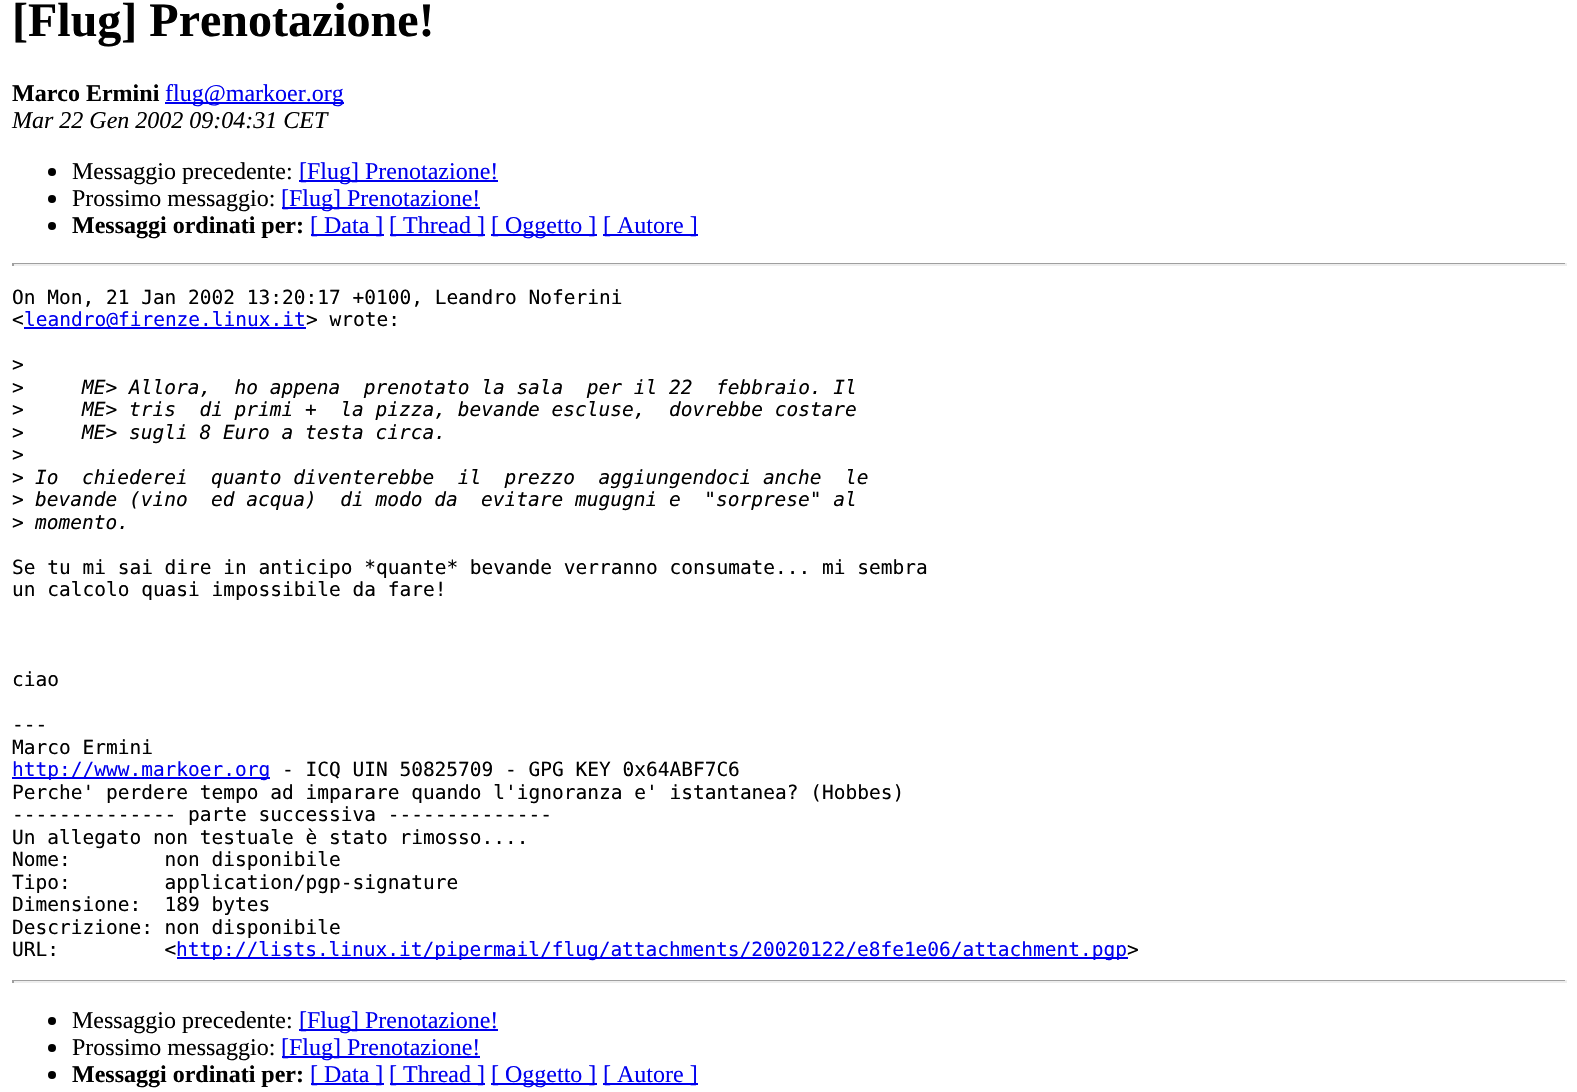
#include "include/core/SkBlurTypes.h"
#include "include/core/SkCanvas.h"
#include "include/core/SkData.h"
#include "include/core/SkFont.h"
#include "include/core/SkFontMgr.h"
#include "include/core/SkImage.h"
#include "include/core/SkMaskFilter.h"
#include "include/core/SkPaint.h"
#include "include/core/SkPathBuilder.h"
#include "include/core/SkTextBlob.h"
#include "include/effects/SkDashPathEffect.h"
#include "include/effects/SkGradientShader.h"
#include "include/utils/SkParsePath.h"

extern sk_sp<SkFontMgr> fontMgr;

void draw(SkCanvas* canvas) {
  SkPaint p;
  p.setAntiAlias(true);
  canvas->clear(SK_ColorWHITE);
  p.setColor(SkColorSetRGB(0, 0, 238));
  canvas->drawRect(SkRect::MakeLTRB(165, 102, 344, 104), p);
  p.setColor(SK_ColorBLACK);
  canvas->drawCircle(52, 172, 4, p);
  p.setColor(SkColorSetRGB(0, 0, 238));
  canvas->drawRect(SkRect::MakeLTRB(299, 180, 498, 182), p);
  p.setColor(SK_ColorBLACK);
  canvas->drawCircle(52, 199, 4, p);
  p.setColor(SkColorSetRGB(0, 0, 238));
  canvas->drawRect(SkRect::MakeLTRB(282, 207, 480, 209), p);
  p.setColor(SK_ColorBLACK);
  canvas->drawCircle(52, 226, 4, p);
  p.setColor(SkColorSetRGB(0, 0, 238));
  canvas->drawRect(SkRect::MakeLTRB(311, 234, 384, 236), p);
  canvas->drawRect(SkRect::MakeLTRB(390, 234, 485, 236), p);
  canvas->drawRect(SkRect::MakeLTRB(491, 234, 597, 236), p);
  canvas->drawRect(SkRect::MakeLTRB(603, 234, 698, 236), p);
  p.setColor(SkColorSetRGB(159, 159, 159));
  canvas->drawRect(SkRect::MakeLTRB(12, 263, 1566, 264), p);
  p.setColor(SkColorSetRGB(238, 238, 238));
  canvas->drawRect(SkRect::MakeLTRB(1565, 263, 1567, 266), p);
  canvas->drawRect(SkRect::MakeLTRB(12, 264, 1566, 266), p);
  p.setColor(SkColorSetRGB(159, 159, 159));
  canvas->drawRect(SkRect::MakeLTRB(12, 263, 14, 266), p);
  p.setColor(SkColorSetRGB(0, 0, 238));
  canvas->drawRect(SkRect::MakeLTRB(24, 327, 306, 329), p);
  canvas->drawRect(SkRect::MakeLTRB(12, 777, 270, 779), p);
  canvas->drawRect(SkRect::MakeLTRB(177, 957, 1128, 959), p);
  p.setColor(SkColorSetRGB(159, 159, 159));
  canvas->drawRect(SkRect::MakeLTRB(12, 980, 1566, 981), p);
  p.setColor(SkColorSetRGB(238, 238, 238));
  canvas->drawRect(SkRect::MakeLTRB(1565, 980, 1567, 983), p);
  canvas->drawRect(SkRect::MakeLTRB(12, 981, 1566, 983), p);
  p.setColor(SkColorSetRGB(159, 159, 159));
  canvas->drawRect(SkRect::MakeLTRB(12, 980, 14, 983), p);
  p.setColor(SK_ColorBLACK);
  canvas->drawCircle(52, 1021, 4, p);
  p.setColor(SkColorSetRGB(0, 0, 238));
  canvas->drawRect(SkRect::MakeLTRB(299, 1029, 498, 1031), p);
  p.setColor(SK_ColorBLACK);
  canvas->drawCircle(52, 1048, 4, p);
  p.setColor(SkColorSetRGB(0, 0, 238));
  canvas->drawRect(SkRect::MakeLTRB(282, 1056, 480, 1058), p);
  p.setColor(SK_ColorBLACK);
  canvas->drawCircle(52, 1075, 4, p);
  p.setColor(SkColorSetRGB(0, 0, 238));
  canvas->drawRect(SkRect::MakeLTRB(311, 1083, 384, 1085), p);
  canvas->drawRect(SkRect::MakeLTRB(390, 1083, 485, 1085), p);
  canvas->drawRect(SkRect::MakeLTRB(491, 1083, 597, 1085), p);
  canvas->drawRect(SkRect::MakeLTRB(603, 1083, 698, 1085), p);
  SkFont font1(fontMgr->matchFamilyStyle("Liberation Serif", SkFontStyle::Bold()), 48);
  font1.setSubpixel(true);
  p.setColor(SK_ColorBLACK);
  canvas->drawString("[Flug] Prenotazione!", 12, 36, font1, p);
  SkFont font2(fontMgr->matchFamilyStyle("Liberation Serif", SkFontStyle::Bold()), 24);
  font2.setSubpixel(true);
  canvas->drawString("Marco Ermini", 12, 101, font2, p);
  SkFont font3(fontMgr->matchFamilyStyle("Liberation Serif", SkFontStyle::Normal()), 24);
  font3.setSubpixel(true);
  p.setColor(SkColorSetRGB(0, 0, 238));
  canvas->drawString("flug@markoer.org", 165, 101, font3, p);
  SkFont font4(fontMgr->matchFamilyStyle("Liberation Serif", SkFontStyle::Italic()), 24);
  font4.setSubpixel(true);
  p.setColor(SK_ColorBLACK);
  canvas->drawString("Mar 22 Gen 2002 09:04:31 CET", 12, 128, font4, p);
  canvas->drawString("Messaggio precedente:", 72, 179, font3, p);
  p.setColor(SkColorSetRGB(0, 0, 238));
  canvas->drawString("[Flug] Prenotazione!", 299, 179, font3, p);
  p.setColor(SK_ColorBLACK);
  canvas->drawString("Prossimo messaggio:", 72, 206, font3, p);
  p.setColor(SkColorSetRGB(0, 0, 238));
  canvas->drawString("[Flug] Prenotazione!", 281, 206, font3, p);
  p.setColor(SK_ColorBLACK);
  canvas->drawString("Messaggi ordinati per:", 72, 233, font2, p);
  p.setColor(SkColorSetRGB(0, 0, 238));
  canvas->drawString("[ Data ]", 310, 233, font3, p);
  canvas->drawString("[ Thread ]", 389, 233, font3, p);
  canvas->drawString("[ Oggetto ]", 491, 233, font3, p);
  canvas->drawString("[ Autore ]", 603, 233, font3, p);
  SkFont font5(fontMgr->matchFamilyStyle("DejaVu Sans Mono", SkFontStyle::Normal()), 19.5f);
  font5.setSubpixel(true);
  p.setColor(SK_ColorBLACK);
  canvas->drawString("On Mon, 21 Jan 2002 13:20:17 +0100, Leandro Noferini", 12, 304, font5, p);
  canvas->drawString("<", 12, 326, font5, p);
  p.setColor(SkColorSetRGB(0, 0, 238));
  canvas->drawString("leandro@firenze.linux.it", 24, 326, font5, p);
  p.setColor(SK_ColorBLACK);
  canvas->drawString("> wrote:", 306, 326, font5, p);
  canvas->drawString(">", 12, 371, font5, p);
  canvas->drawString(">", 12, 394, font5, p);
  SkFont font6(fontMgr->matchFamilyStyle("DejaVu Sans Mono", SkFontStyle::Italic()), 19.5f);
  font6.setSubpixel(true);
  canvas->drawString("ME> Allora,  ho appena  prenotato la sala  per il 22  febbraio. Il", 82, 394, font6, p);
  canvas->drawString(">", 12, 416, font5, p);
  canvas->drawString("ME> tris  di primi +  la pizza, bevande escluse,  dovrebbe costare", 82, 416, font6, p);
  canvas->drawString(">", 12, 439, font5, p);
  canvas->drawString("ME> sugli 8 Euro a testa circa.", 82, 439, font6, p);
  canvas->drawString(">", 12, 461, font5, p);
  canvas->drawString(">", 12, 484, font5, p);
  canvas->drawString("Io  chiederei  quanto diventerebbe  il  prezzo  aggiungendoci anche  le", 35, 484, font6, p);
  canvas->drawString(">", 12, 506, font5, p);
  canvas->drawString("bevande (vino  ed acqua)  di modo da  evitare mugugni e  \"sorprese\" al", 35, 506, font6, p);
  canvas->drawString(">", 12, 529, font5, p);
  canvas->drawString("momento.", 35, 529, font6, p);
  canvas->drawString("Se tu mi sai dire in anticipo *quante* bevande verranno consumate... mi sembra", 12, 574, font5, p);
  canvas->drawString("un calcolo quasi impossibile da fare!", 12, 596, font5, p);
  canvas->drawString("ciao", 12, 686, font5, p);
  canvas->drawString("---", 12, 731, font5, p);
  canvas->drawString("Marco Ermini", 12, 754, font5, p);
  p.setColor(SkColorSetRGB(0, 0, 238));
  canvas->drawString("http://www.markoer.org", 12, 776, font5, p);
  p.setColor(SK_ColorBLACK);
  canvas->drawString("- ICQ UIN 50825709 - GPG KEY 0x64ABF7C6", 282, 776, font5, p);
  canvas->drawString("Perche' perdere tempo ad imparare quando l'ignoranza e' istantanea? (Hobbes)", 12, 799, font5, p);
  canvas->drawString("-------------- parte successiva --------------", 12, 821, font5, p);
  canvas->drawString("Un allegato non testuale è stato rimosso....", 12, 844, font5, p);
  canvas->drawString("Nome:        non disponibile", 12, 866, font5, p);
  canvas->drawString("Tipo:        application/pgp-signature", 12, 889, font5, p);
  canvas->drawString("Dimensione:  189 bytes", 12, 911, font5, p);
  canvas->drawString("Descrizione: non disponibile", 12, 934, font5, p);
  canvas->drawString("URL:         <", 12, 956, font5, p);
  p.setColor(SkColorSetRGB(0, 0, 238));
  canvas->drawString("http://lists.linux.it/pipermail/flug/attachments/20020122/e8fe1e06/attachment.pgp", 176, 956, font5, p);
  p.setColor(SK_ColorBLACK);
  canvas->drawString(">", 1127, 956, font5, p);
  canvas->drawString("Messaggio precedente:", 72, 1028, font3, p);
  p.setColor(SkColorSetRGB(0, 0, 238));
  canvas->drawString("[Flug] Prenotazione!", 299, 1028, font3, p);
  p.setColor(SK_ColorBLACK);
  canvas->drawString("Prossimo messaggio:", 72, 1055, font3, p);
  p.setColor(SkColorSetRGB(0, 0, 238));
  canvas->drawString("[Flug] Prenotazione!", 281, 1055, font3, p);
  p.setColor(SK_ColorBLACK);
  canvas->drawString("Messaggi ordinati per:", 72, 1082, font2, p);
  p.setColor(SkColorSetRGB(0, 0, 238));
  canvas->drawString("[ Data ]", 310, 1082, font3, p);
  canvas->drawString("[ Thread ]", 389, 1082, font3, p);
  canvas->drawString("[ Oggetto ]", 491, 1082, font3, p);
  canvas->drawString("[ Autore ]", 603, 1082, font3, p);
}
